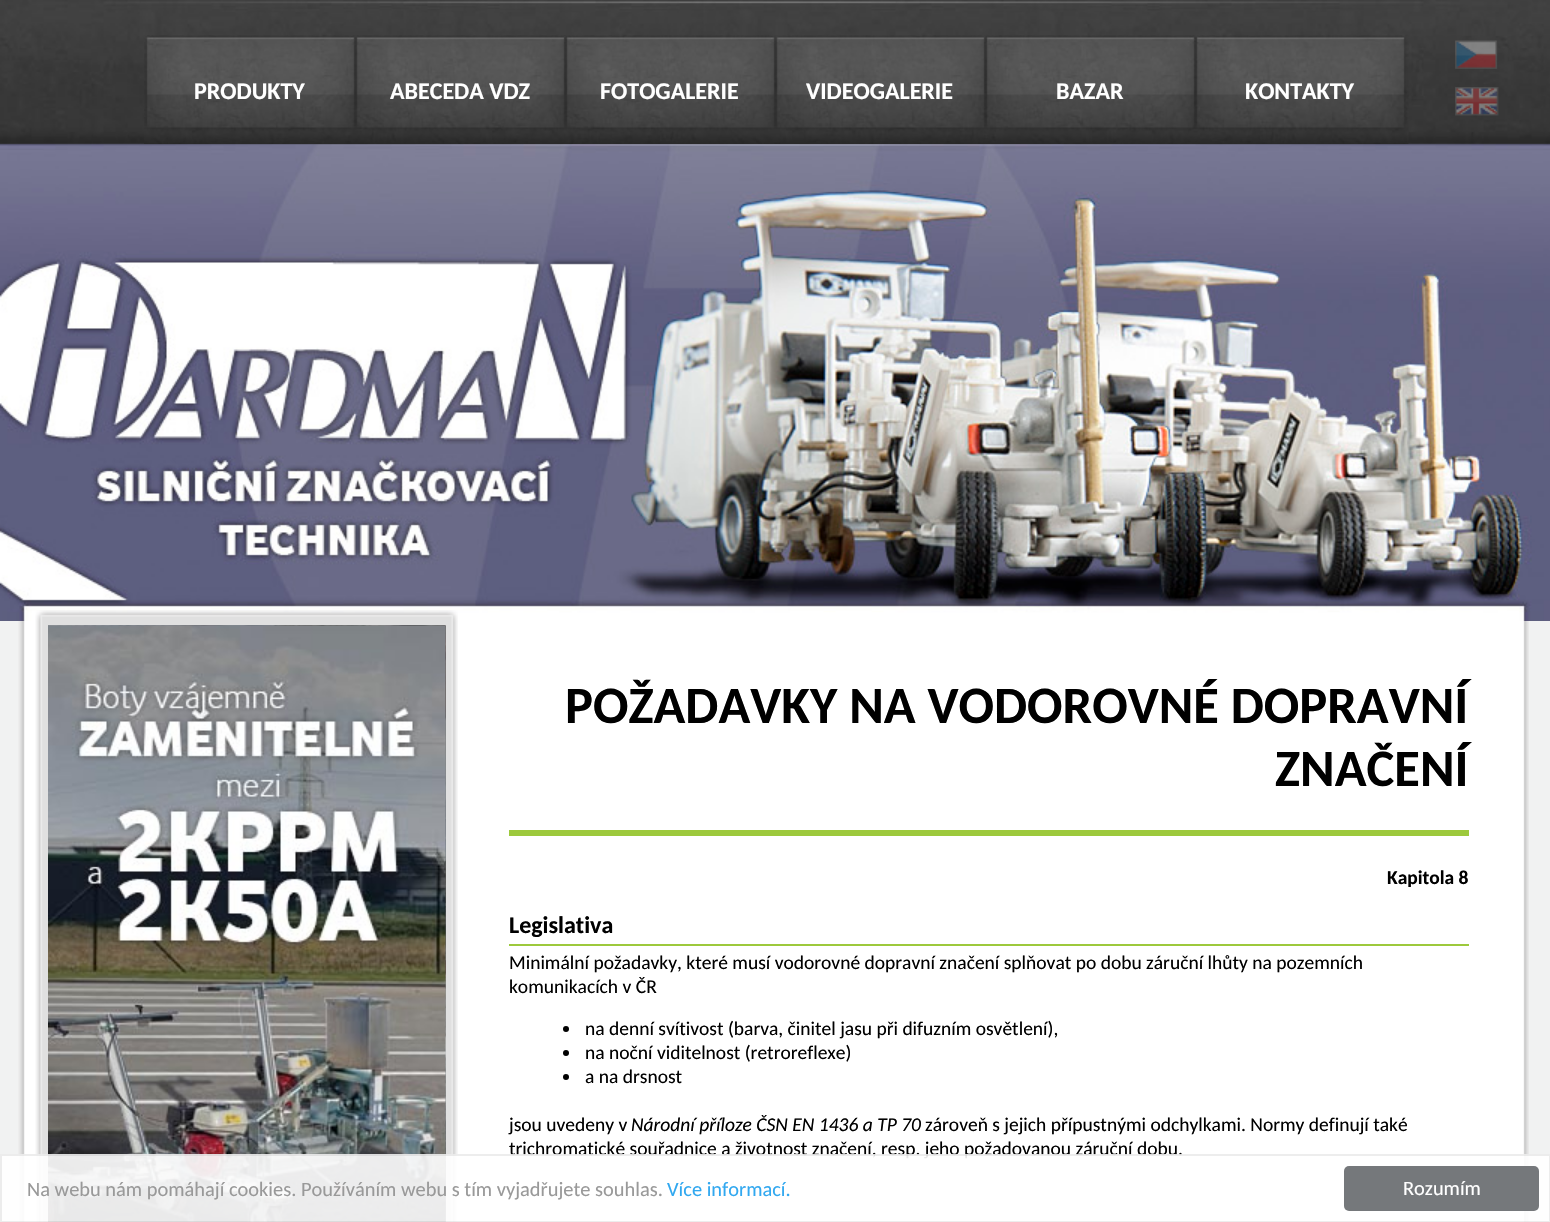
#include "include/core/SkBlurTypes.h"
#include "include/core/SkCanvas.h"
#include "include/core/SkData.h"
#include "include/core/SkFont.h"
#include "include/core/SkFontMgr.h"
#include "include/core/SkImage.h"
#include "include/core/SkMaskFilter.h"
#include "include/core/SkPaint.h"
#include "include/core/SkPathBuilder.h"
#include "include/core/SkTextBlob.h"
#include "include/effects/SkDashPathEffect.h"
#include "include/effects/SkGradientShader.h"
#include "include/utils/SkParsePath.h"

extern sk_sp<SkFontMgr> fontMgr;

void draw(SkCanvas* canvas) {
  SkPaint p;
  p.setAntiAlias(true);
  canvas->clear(SkColorSetRGB(241, 242, 242));
  canvas->drawImageRect(SkImages::DeferredFromEncodedData(SkData::MakeFromFileName("images/1.png")), SkRect::MakeLTRB(0, 0, 1550, 621), SkSamplingOptions());
  canvas->drawImageRect(SkImages::DeferredFromEncodedData(SkData::MakeFromFileName("images/2.png")), SkRect::MakeLTRB(144, 35, 1409, 144), SkSamplingOptions());
  canvas->drawImageRect(SkImages::DeferredFromEncodedData(SkData::MakeFromFileName("images/3.png")), SkRect::MakeLTRB(1455, 40, 1498, 69), SkSamplingOptions());
  canvas->drawImageRect(SkImages::DeferredFromEncodedData(SkData::MakeFromFileName("images/4.png")), SkRect::MakeLTRB(1455, 87, 1499, 116), SkSamplingOptions());
  canvas->drawImageRect(SkImages::DeferredFromEncodedData(SkData::MakeFromFileName("images/5.png")), SkRect::MakeLTRB(18, 621, 1529, 1222), SkSamplingOptions());
  canvas->drawImageRect(SkImages::DeferredFromEncodedData(SkData::MakeFromFileName("images/6.png")), SkRect::MakeLTRB(35, 610, 458, 1222), SkSamplingOptions());
  canvas->drawImageRect(SkImages::DeferredFromEncodedData(SkData::MakeFromFileName("images/7.png")), SkRect::MakeLTRB(48, 625, 446, 1222), SkSamplingOptions());
  canvas->drawImageRect(SkImages::DeferredFromEncodedData(SkData::MakeFromFileName("images/8.png")), SkRect::MakeLTRB(48, 625, 446, 1222), SkSamplingOptions());
  canvas->drawImageRect(SkImages::DeferredFromEncodedData(SkData::MakeFromFileName("images/9.png")), SkRect::MakeLTRB(48, 625, 446, 1222), SkSamplingOptions());
  canvas->drawImageRect(SkImages::DeferredFromEncodedData(SkData::MakeFromFileName("images/10.png")), SkRect::MakeLTRB(48, 625, 446, 1222), SkSamplingOptions());
  p.setColor(SkColorSetRGB(157, 201, 60));
  canvas->drawRect(SkRect::MakeLTRB(509, 830, 1469, 836), p);
  canvas->drawRect(SkRect::MakeLTRB(509, 944, 1469, 946), p);
  p.setColor(SK_ColorBLACK);
  canvas->drawCircle(566, 1029, 3, p);
  canvas->drawCircle(566, 1053, 3, p);
  canvas->drawCircle(566, 1077, 3, p);
  SkFont font1(fontMgr->matchFamilyStyle("Carlito", SkFontStyle::Bold()), 24);
  font1.setSubpixel(true);
  p.setColor(SK_ColorWHITE);
  canvas->drawString("PRODUKTY", 194, 99, font1, p);
  canvas->drawString("ABECEDA VDZ", 390, 99, font1, p);
  canvas->drawString("FOTOGALERIE", 600, 99, font1, p);
  canvas->drawString("VIDEOGALERIE", 806, 99, font1, p);
  canvas->drawString("BAZAR", 1056, 99, font1, p);
  canvas->drawString("KONTAKTY", 1245, 99, font1, p);
  SkFont font2(fontMgr->matchFamilyStyle("Carlito", SkFontStyle::Bold()), 52.5f);
  font2.setSubpixel(true);
  p.setColor(SK_ColorBLACK);
  canvas->drawString("POŽADAVKY NA VODOROVNÉ DOPRAVNÍ", 565, 723, font2, p);
  canvas->drawString("ZNAČENÍ", 1275, 786, font2, p);
  SkFont font3(fontMgr->matchFamilyStyle("Carlito", SkFontStyle::Bold()), 19.5f);
  font3.setSubpixel(true);
  canvas->drawString("Kapitola 8", 1387, 884, font3, p);
  canvas->drawString("Legislativa", 509, 933, font1, p);
  SkFont font4(fontMgr->matchFamilyStyle("Carlito", SkFontStyle::Normal()), 19.5f);
  font4.setSubpixel(true);
  canvas->drawString("Minimální požadavky, které musí vodorovné dopravní značení splňovat po dobu záruční lhůty na pozemních", 509, 969, font4, p);
  canvas->drawString("komunikacích v ČR", 509, 993, font4, p);
  canvas->drawString("na denní svítivost (barva, činitel jasu při difuzním osvětlení),", 585, 1035, font4, p);
  canvas->drawString("na noční viditelnost (retroreflexe)", 585, 1059, font4, p);
  canvas->drawString("a na drsnost", 585, 1083, font4, p);
  canvas->drawString("jsou uvedeny v", 509, 1131, font4, p);
  SkFont font5(fontMgr->matchFamilyStyle("Carlito", SkFontStyle::Italic()), 19.5f);
  font5.setSubpixel(true);
  canvas->drawString("Národní příloze ČSN EN 1436 a TP 70", 631, 1131, font5, p);
  canvas->drawString("zároveň s jejich přípustnými odchylkami. Normy definují také", 925, 1131, font4, p);
  canvas->drawString("trichromatické souřadnice a životnost značení, resp. jeho požadovanou záruční dobu.", 509, 1155, font4, p);
  p.setColor(SkColorSetARGB(230, 255, 255, 255));
  canvas->drawRect(SkRect::MakeLTRB(0, 1154, 1550, 1222), p);
  p.setStyle(SkPaint::kStroke_Style);
  p.setStrokeWidth(2);
  p.setColor(SkColorSetARGB(18, 0, 0, 0));
  canvas->drawRect(SkRect::MakeLTRB(1, 1155, 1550, 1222), p);
  SkFont font6(fontMgr->matchFamilyStyle("Carlito", SkFontStyle::Normal()), 20.4f);
  font6.setSubpixel(true);
  p.setStyle(SkPaint::kFill_Style);
  p.setColor(SkColorSetRGB(153, 153, 153));
  canvas->drawString("Na webu nám pomáhají cookies. Používáním webu s tím vyjadřujete souhlas.", 27, 1196, font6, p);
  p.setColor(SkColorSetRGB(49, 168, 240));
  canvas->drawString("Více informací.", 667, 1196, font6, p);
  p.setColor(SkColorSetRGB(117, 120, 123));
  canvas->drawRoundRect(SkRect::MakeLTRB(1344, 1166, 1539, 1211), 5, 5, p);
  p.setColor(SK_ColorWHITE);
  canvas->drawString("Rozumím", 1403, 1195, font6, p);
}
